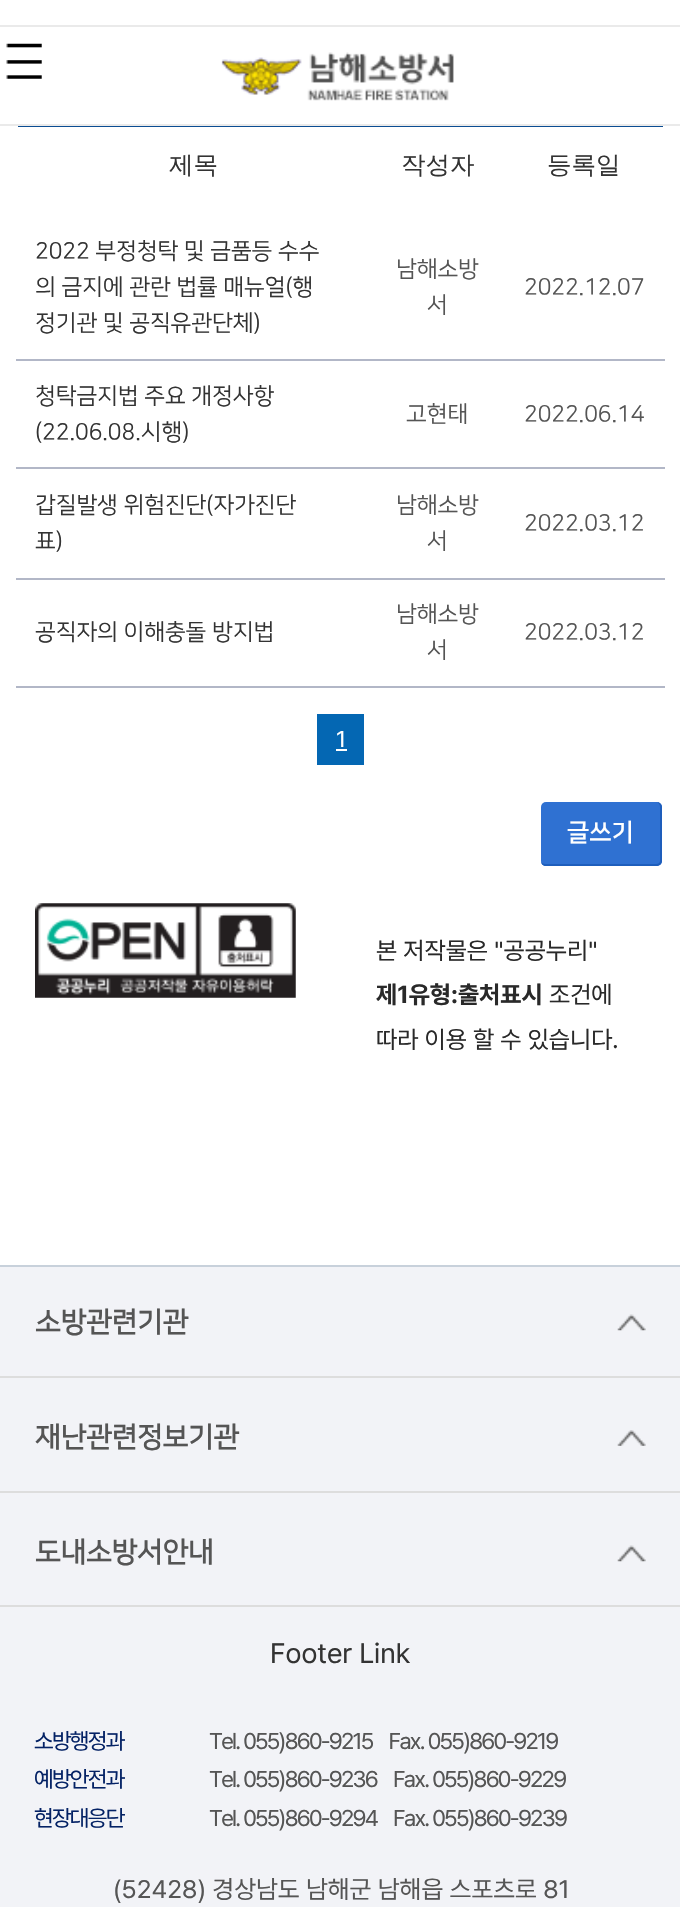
#include "include/core/SkBlurTypes.h"
#include "include/core/SkCanvas.h"
#include "include/core/SkData.h"
#include "include/core/SkFont.h"
#include "include/core/SkFontMgr.h"
#include "include/core/SkImage.h"
#include "include/core/SkMaskFilter.h"
#include "include/core/SkPaint.h"
#include "include/core/SkPathBuilder.h"
#include "include/core/SkTextBlob.h"
#include "include/effects/SkDashPathEffect.h"
#include "include/effects/SkGradientShader.h"
#include "include/utils/SkParsePath.h"

extern sk_sp<SkFontMgr> fontMgr;

void draw(SkCanvas* canvas) {
  SkPaint p;
  p.setAntiAlias(true);
  auto spacedText = [&](const char* s, float x, float y, const SkFont& font, const SkPaint& ink, float letter, float word) {
    std::vector<SkGlyphID> glyphs(font.countText(s, strlen(s), SkTextEncoding::kUTF8));
    std::vector<float> xs(glyphs.size());
    font.textToGlyphs(s, strlen(s), SkTextEncoding::kUTF8, glyphs);
    font.getXPos(glyphs, xs, x);
    float extra = 0;
    for (size_t i = 0; i < glyphs.size(); i++) {
      xs[i] += extra;
      extra += letter + word * (glyphs[i] == font.unicharToGlyph(' '));
    }
    canvas->drawTextBlob(SkTextBlob::MakeFromPosHGlyphs(glyphs, xs, y, font), 0, 0, ink);
  };
  canvas->clear(SK_ColorWHITE);
  p.setColor(SkColorSetRGB(234, 234, 234));
  canvas->drawRect(SkRect::MakeLTRB(0, 25, 680, 27), p);
  p.setColor(SkColorSetRGB(200, 209, 219));
  canvas->drawRect(SkRect::MakeLTRB(0, 1265, 680, 1267), p);
  p.setColor(SkColorSetRGB(234, 234, 234));
  canvas->drawRect(SkRect::MakeLTRB(0, 124, 680, 126), p);
  canvas->drawImageRect(SkImages::DeferredFromEncodedData(SkData::MakeFromFileName("images/1.png")), SkRect::MakeLTRB(6, 43, 42, 79), SkSamplingOptions());
  canvas->drawImageRect(SkImages::DeferredFromEncodedData(SkData::MakeFromFileName("images/2.png")), SkRect::MakeLTRB(221, 52, 454, 101), SkSamplingOptions());
  p.setColor(SkColorSetRGB(11, 77, 147));
  canvas->drawRect(SkRect::MakeLTRB(18, 126, 663, 127), p);
  p.setColor(SkColorSetRGB(178, 183, 199));
  canvas->drawRect(SkRect::MakeLTRB(16, 359, 665, 361), p);
  canvas->drawRect(SkRect::MakeLTRB(16, 467, 665, 469), p);
  canvas->drawRect(SkRect::MakeLTRB(16, 578, 665, 580), p);
  canvas->drawRect(SkRect::MakeLTRB(16, 686, 665, 688), p);
  p.setColor(SkColorSetRGB(4, 103, 179));
  canvas->drawRect(SkRect::MakeLTRB(317, 714, 364, 765), p);
  p.setColor(SK_ColorWHITE);
  canvas->drawRect(SkRect::MakeLTRB(336, 749, 347, 751), p);
  p.setColor(SkColorSetRGB(47, 113, 210));
  canvas->drawRoundRect(SkRect::MakeLTRB(541, 802, 662, 866), 5, 5, p);
  p.setColor(SkColorSetRGB(30, 94, 188));
  canvas->drawPath(SkPathBuilder(SkPathFillType::kEvenOdd).moveTo(546, 802).lineTo(656, 802).cubicTo(659, 802, 662, 804, 662, 807).lineTo(662, 861).cubicTo(662, 864, 659, 866, 656, 866).lineTo(546, 866).cubicTo(543, 866, 541, 864, 541, 861).lineTo(541, 807).cubicTo(541, 804, 543, 802, 546, 802).close().moveTo(546, 802).lineTo(656, 802).cubicTo(658, 802, 660, 804, 660, 807).lineTo(660, 861).cubicTo(660, 863, 658, 864, 656, 864).lineTo(546, 864).cubicTo(543, 864, 541, 863, 541, 861).lineTo(541, 807).cubicTo(541, 804, 543, 802, 546, 802).close().detach(), p);
  canvas->drawImageRect(SkImages::DeferredFromEncodedData(SkData::MakeFromFileName("images/3.png")), SkRect::MakeLTRB(35, 903, 296, 998), SkSamplingOptions());
  p.setColor(SkColorSetRGB(242, 243, 247));
  canvas->drawRect(SkRect::MakeLTRB(0, 1267, 680, 1907), p);
  p.setColor(SkColorSetRGB(221, 221, 221));
  canvas->drawRect(SkRect::MakeLTRB(0, 1376, 680, 1378), p);
  canvas->drawImageRect(SkImages::DeferredFromEncodedData(SkData::MakeFromFileName("images/4.png")), SkRect::MakeLTRB(617, 1314, 646, 1331), SkSamplingOptions());
  canvas->drawRect(SkRect::MakeLTRB(0, 1491, 680, 1493), p);
  canvas->drawImageRect(SkImages::DeferredFromEncodedData(SkData::MakeFromFileName("images/5.png")), SkRect::MakeLTRB(617, 1430, 646, 1446), SkSamplingOptions());
  canvas->drawRect(SkRect::MakeLTRB(0, 1605, 680, 1607), p);
  canvas->drawImageRect(SkImages::DeferredFromEncodedData(SkData::MakeFromFileName("images/4.png")), SkRect::MakeLTRB(617, 1545, 646, 1562), SkSamplingOptions());
  SkFont font1(fontMgr->matchFamilyStyle("WenQuanYi Zen Hei", SkFontStyle(500, SkFontStyle::kNormal_Width, SkFontStyle::kUpright_Slant)), 24.5f);
  font1.setSubpixel(true);
  p.setColor(SkColorSetRGB(51, 51, 51));
  canvas->drawString("제목", 169, 173, font1, p);
  canvas->drawString("작성자", 401, 173, font1, p);
  canvas->drawString("등록일", 547, 173, font1, p);
  SkFont font2(fontMgr->matchFamilyStyle("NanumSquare", SkFontStyle::Normal()), 22.75f);
  font2.setSubpixel(true);
  canvas->drawString("2022 부정청탁 및 금품등 수수", 35, 258, font2, p);
  canvas->drawString("의 금지에 관란 법률 매뉴얼(행", 35, 294, font2, p);
  canvas->drawString("정기관 및 공직유관단체)", 35, 330, font2, p);
  p.setColor(SkColorSetRGB(85, 85, 85));
  canvas->drawString("남해소방", 396, 276, font2, p);
  canvas->drawString("서", 427, 312, font2, p);
  canvas->drawString("2022.12.07", 524, 294, font2, p);
  p.setColor(SkColorSetRGB(51, 51, 51));
  canvas->drawString("청탁금지법 주요 개정사항", 35, 403, font2, p);
  canvas->drawString("(22.06.08.시행)", 35, 439, font2, p);
  p.setColor(SkColorSetRGB(85, 85, 85));
  canvas->drawString("고현태", 406, 421, font2, p);
  canvas->drawString("2022.06.14", 524, 421, font2, p);
  p.setColor(SkColorSetRGB(51, 51, 51));
  canvas->drawString("갑질발생 위험진단(자가진단", 35, 512, font2, p);
  canvas->drawString("표)", 35, 548, font2, p);
  p.setColor(SkColorSetRGB(85, 85, 85));
  canvas->drawString("남해소방", 396, 512, font2, p);
  canvas->drawString("서", 427, 548, font2, p);
  canvas->drawString("2022.03.12", 524, 530, font2, p);
  p.setColor(SkColorSetRGB(51, 51, 51));
  canvas->drawString("공직자의 이해충돌 방지법", 35, 639, font2, p);
  p.setColor(SkColorSetRGB(85, 85, 85));
  canvas->drawString("남해소방", 396, 621, font2, p);
  canvas->drawString("서", 427, 657, font2, p);
  canvas->drawString("2022.03.12", 524, 639, font2, p);
  SkFont font3(fontMgr->matchFamilyStyle("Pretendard", SkFontStyle::Normal()), 22.75f);
  font3.setSubpixel(true);
  p.setColor(SK_ColorWHITE);
  canvas->drawString("1", 336, 747, font3, p);
  SkFont font4(fontMgr->matchFamilyStyle("NanumSquare", SkFontStyle::Bold()), 24.5f);
  font4.setSubpixel(true);
  canvas->drawString("글쓰기", 567, 840, font4, p);
  SkFont font5(fontMgr->matchFamilyStyle("Pretendard", SkFontStyle::Normal()), 24.5f);
  font5.setSubpixel(true);
  p.setColor(SkColorSetRGB(41, 41, 41));
  canvas->drawString("본 저작물은 \"공공누리\"", 376, 959, font5, p);
  SkFont font6(fontMgr->matchFamilyStyle("Pretendard", SkFontStyle::Bold()), 24.5f);
  font6.setSubpixel(true);
  canvas->drawString("제1유형:출처표시", 376, 1003, font6, p);
  canvas->drawString("조건에", 549, 1003, font5, p);
  canvas->drawString("따라 이용 할 수 있습니다.", 376, 1048, font5, p);
  SkFont font7(fontMgr->matchFamilyStyle("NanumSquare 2", SkFontStyle::Bold()), 28);
  font7.setSubpixel(true);
  p.setColor(SkColorSetRGB(85, 85, 85));
  canvas->drawString("소방관련기관", 35, 1331, font7, p);
  canvas->drawString("재난관련정보기관", 35, 1446, font7, p);
  canvas->drawString("도내소방서안내", 35, 1561, font7, p);
  SkFont font8(fontMgr->matchFamilyStyle("Pretendard", SkFontStyle::Normal()), 28);
  font8.setSubpixel(true);
  p.setColor(SkColorSetRGB(51, 51, 51));
  canvas->drawString("Footer Link", 270, 1663, font8, p);
  p.setColor(SkColorSetRGB(4, 34, 101));
  spacedText("소방행정과", 34, 1749, font3, p, -1.75f, 0);
  p.setColor(SkColorSetRGB(85, 85, 85));
  spacedText("Tel. 055)860-9215    Fax. 055)860-9219", 209, 1749, font3, p, -1.75f, 0);
  p.setColor(SkColorSetRGB(4, 34, 101));
  spacedText("예방안전과", 34, 1787, font3, p, -1.75f, 0);
  p.setColor(SkColorSetRGB(85, 85, 85));
  spacedText("Tel. 055)860-9236    Fax. 055)860-9229", 209, 1787, font3, p, -1.75f, 0);
  p.setColor(SkColorSetRGB(4, 34, 101));
  spacedText("현장대응단", 34, 1826, font3, p, -1.75f, 0);
  p.setColor(SkColorSetRGB(85, 85, 85));
  spacedText("Tel. 055)860-9294    Fax. 055)860-9239", 209, 1826, font3, p, -1.75f, 0);
  SkFont font9(fontMgr->matchFamilyStyle("Pretendard", SkFontStyle::Normal()), 25.25f);
  font9.setSubpixel(true);
  canvas->drawString("(52428) 경상남도 남해군 남해읍 스포츠로 81", 113, 1898, font9, p);
}
